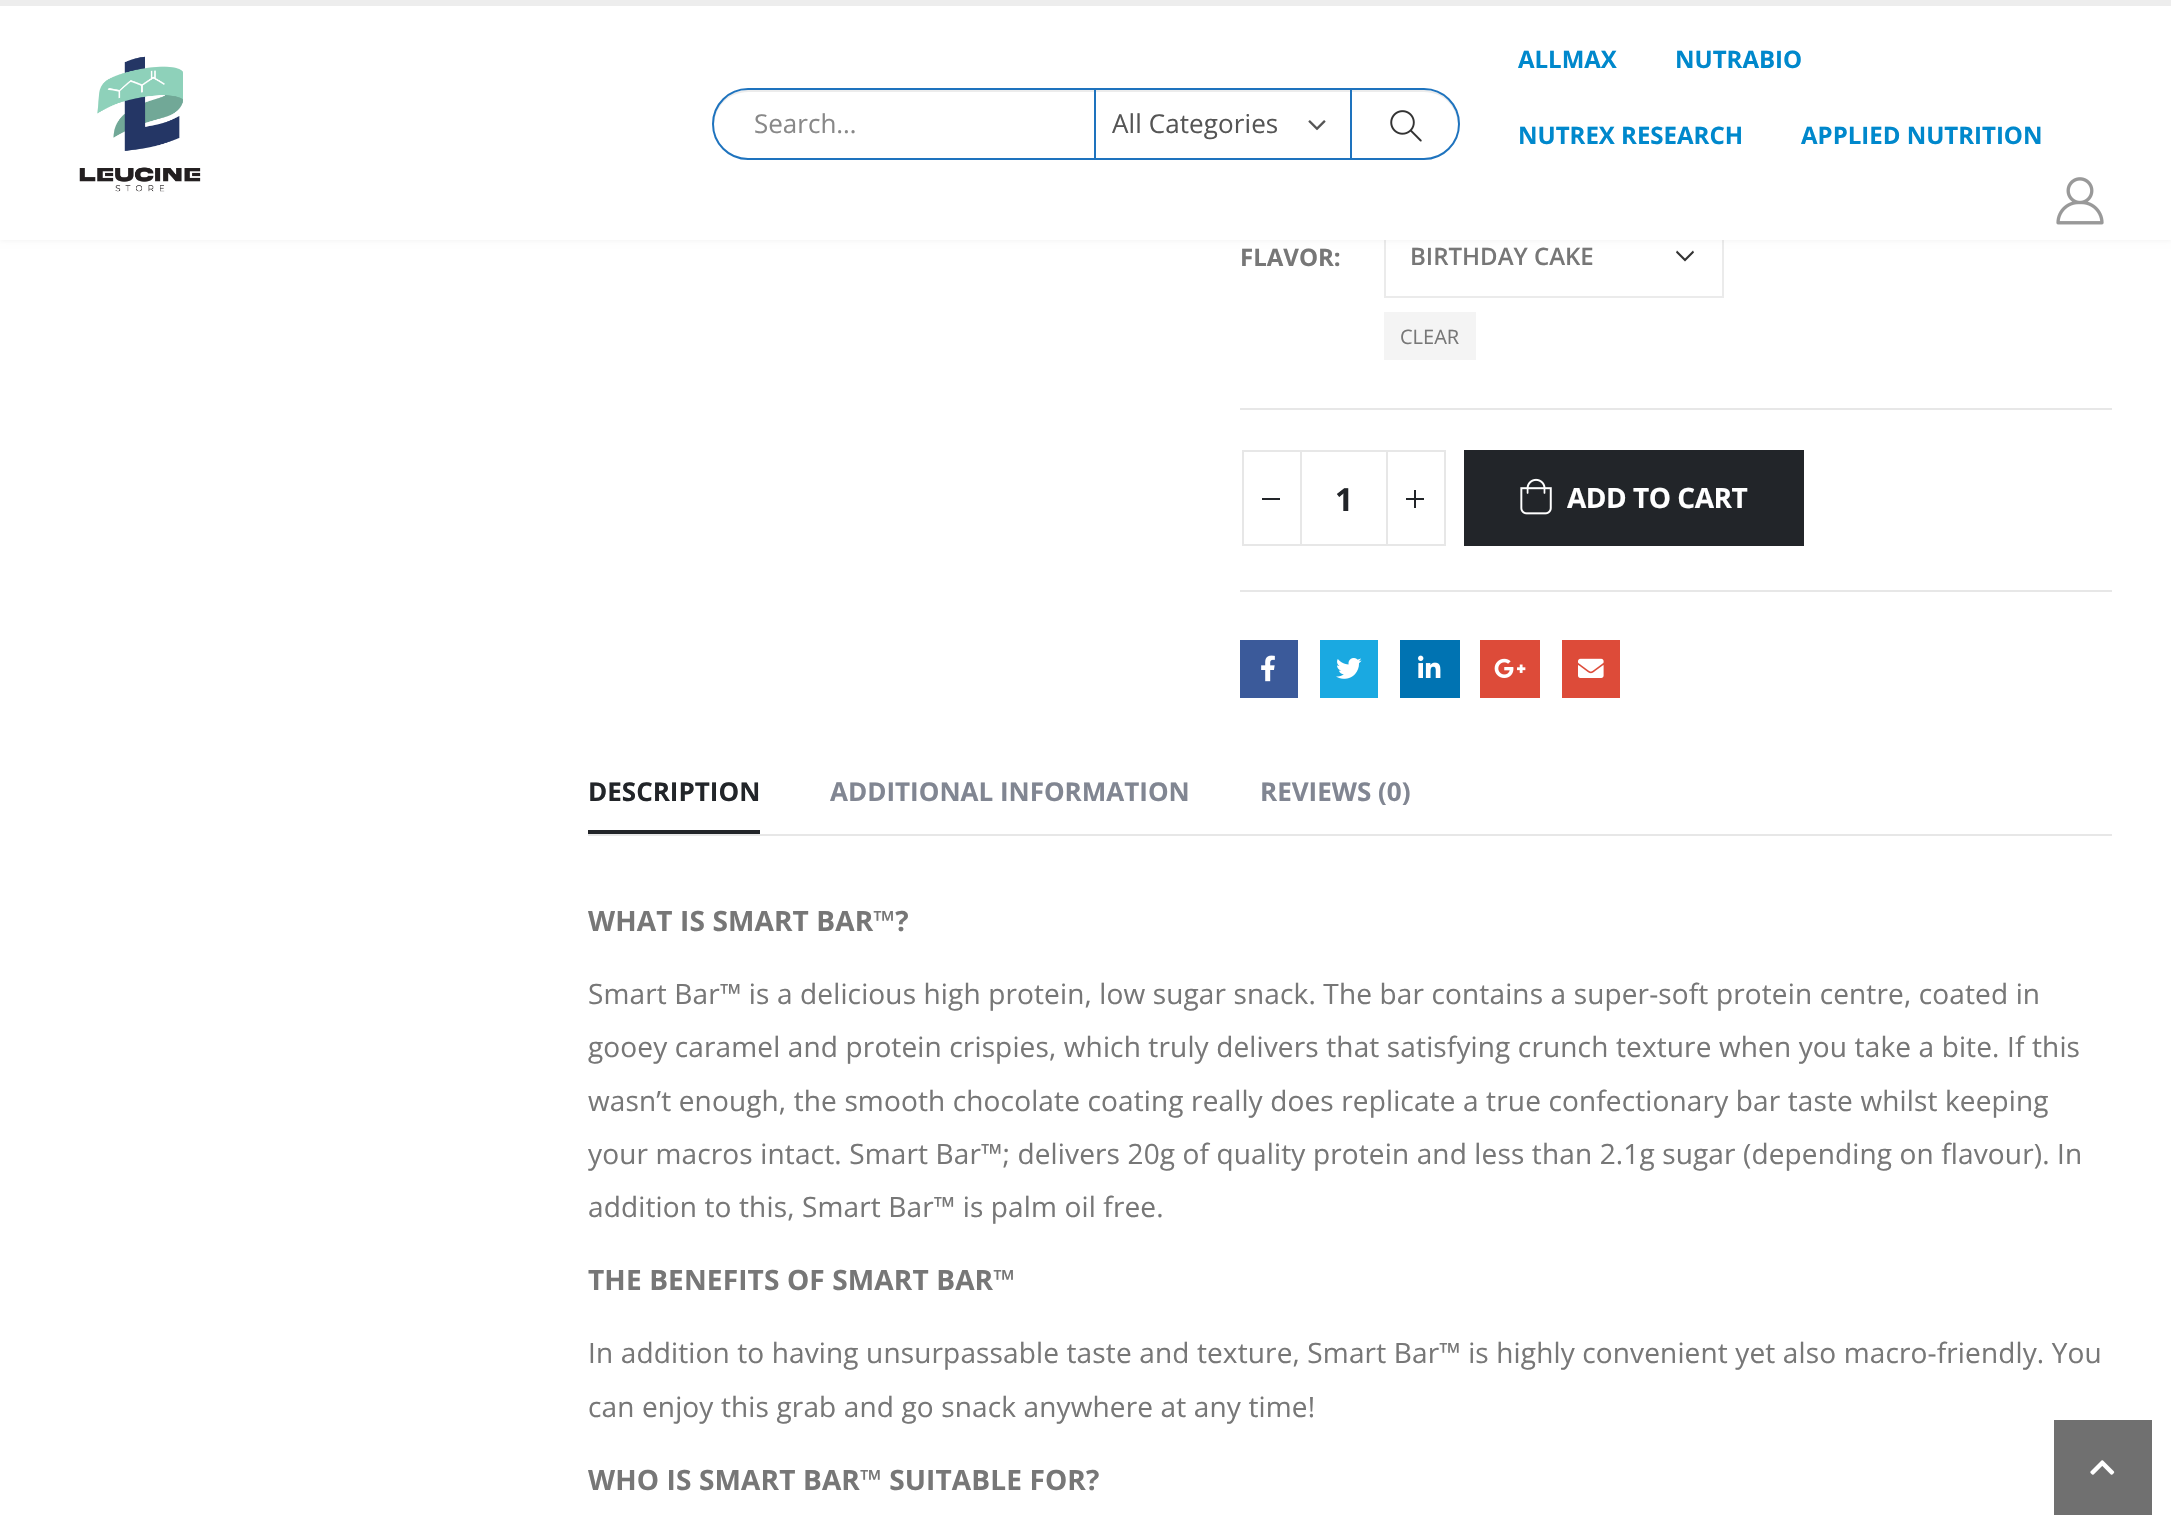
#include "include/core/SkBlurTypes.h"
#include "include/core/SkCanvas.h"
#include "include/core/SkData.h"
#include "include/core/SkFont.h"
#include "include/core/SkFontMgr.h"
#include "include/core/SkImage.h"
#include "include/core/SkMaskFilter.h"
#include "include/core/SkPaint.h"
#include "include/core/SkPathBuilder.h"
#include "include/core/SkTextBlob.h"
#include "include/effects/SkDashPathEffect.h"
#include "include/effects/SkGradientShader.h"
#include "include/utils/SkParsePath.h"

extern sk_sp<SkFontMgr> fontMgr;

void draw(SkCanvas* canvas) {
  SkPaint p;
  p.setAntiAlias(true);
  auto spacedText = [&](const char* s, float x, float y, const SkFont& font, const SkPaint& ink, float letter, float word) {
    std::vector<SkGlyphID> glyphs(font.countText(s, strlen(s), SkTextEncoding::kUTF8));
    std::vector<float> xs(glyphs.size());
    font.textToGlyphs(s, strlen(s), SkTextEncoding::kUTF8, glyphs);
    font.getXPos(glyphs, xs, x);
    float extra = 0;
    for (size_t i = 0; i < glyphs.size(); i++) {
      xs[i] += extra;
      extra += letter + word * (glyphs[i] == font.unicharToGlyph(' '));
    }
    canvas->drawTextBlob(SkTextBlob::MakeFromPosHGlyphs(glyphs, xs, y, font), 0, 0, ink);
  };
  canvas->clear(SK_ColorWHITE);
  p.setColor(SkColorSetRGB(51, 51, 51));
  canvas->drawPath(SkPathBuilder(SkPathFillType::kEvenOdd).moveTo(1685, 261.5f).lineTo(1694, 252.5f).lineTo(1693, 250.5f).lineTo(1685, 258.5f).lineTo(1677, 250.5f).lineTo(1676, 252.5f).close().detach(), p);
  p.setStyle(SkPaint::kStroke_Style);
  p.setStrokeWidth(2);
  p.setColor(SkColorSetRGB(235, 235, 235));
  canvas->drawRect(SkRect::MakeLTRB(1385, 215, 1723, 297), p);
  p.setStyle(SkPaint::kFill_Style);
  p.setColor(SkColorSetARGB(15, 0, 0, 0));
  p.setMaskFilter(SkMaskFilter::MakeBlur(kNormal_SkBlurStyle, 3));
  canvas->drawRect(SkRect::MakeLTRB(0, 0, 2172, 240), p);
  p.setMaskFilter(nullptr);
  p.setColor(SK_ColorWHITE);
  canvas->drawRect(SkRect::MakeLTRB(0, 6, 2171, 240), p);
  p.setColor(SkColorSetRGB(237, 237, 237));
  canvas->drawRect(SkRect::MakeLTRB(0, 0, 2171, 6), p);
  canvas->drawImageRect(SkImages::DeferredFromEncodedData(SkData::MakeFromFileName("images/1.png")), SkRect::MakeLTRB(79, 56, 201, 192), SkSamplingOptions());
  p.setColor(SkColorSetRGB(236, 236, 236));
  canvas->drawPath(SkPathBuilder().moveTo(748, 92).lineTo(1424, 92).cubicTo(1443, 92, 1457, 106, 1458, 125).cubicTo(1459, 106, 1443, 90, 1424, 90).lineTo(748, 90).cubicTo(729, 90, 713, 106, 714, 125).cubicTo(715, 106, 729, 92, 748, 92).close().detach(), p);
  p.setStyle(SkPaint::kStroke_Style);
  p.setColor(SkColorSetRGB(30, 115, 190));
  canvas->drawRoundRect(SkRect::MakeLTRB(713, 89, 1459, 159), 35, 35, p);
  p.setStyle(SkPaint::kFill_Style);
  canvas->drawRect(SkRect::MakeLTRB(1350, 90, 1352, 158), p);
  canvas->drawRect(SkRect::MakeLTRB(1094, 90, 1096, 158), p);
  canvas->drawImageRect(SkImages::DeferredFromEncodedData(SkData::MakeFromFileName("images/2.png")), SkRect::MakeLTRB(1308, 120, 1326, 131), SkSamplingOptions());
  canvas->drawImageRect(SkImages::DeferredFromEncodedData(SkData::MakeFromFileName("images/3.png")), SkRect::MakeLTRB(1390, 110, 1422, 142), SkSamplingOptions());
  canvas->drawImageRect(SkImages::DeferredFromEncodedData(SkData::MakeFromFileName("images/4.png")), SkRect::MakeLTRB(2056, 177, 2104, 225), SkSamplingOptions());
  p.setColor(SkColorSetRGB(244, 244, 244));
  canvas->drawRect(SkRect::MakeLTRB(1384, 312, 1476, 360), p);
  p.setColor(SkColorSetRGB(231, 231, 231));
  canvas->drawRect(SkRect::MakeLTRB(1240, 408, 2112, 410), p);
  canvas->drawRect(SkRect::MakeLTRB(1240, 590, 2112, 592), p);
  canvas->drawRect(SkRect::MakeLTRB(1300, 450, 1388, 452), p);
  canvas->drawRect(SkRect::MakeLTRB(1300, 544, 1388, 546), p);
  p.setStyle(SkPaint::kStroke_Style);
  canvas->drawRect(SkRect::MakeLTRB(1243, 451, 1301, 545), p);
  p.setStyle(SkPaint::kFill_Style);
  p.setColor(SkColorSetRGB(34, 37, 41));
  canvas->drawRect(SkRect::MakeLTRB(1262, 498, 1280, 500), p);
  p.setStyle(SkPaint::kStroke_Style);
  p.setColor(SkColorSetRGB(231, 231, 231));
  canvas->drawRect(SkRect::MakeLTRB(1387, 451, 1445, 545), p);
  p.setStyle(SkPaint::kFill_Style);
  p.setColor(SkColorSetRGB(34, 37, 41));
  canvas->drawRect(SkRect::MakeLTRB(1406, 498, 1424, 500), p);
  canvas->drawRect(SkRect::MakeLTRB(1414, 490, 1416, 508), p);
  canvas->drawRect(SkRect::MakeLTRB(1464, 450, 1804, 546), p);
  canvas->drawImageRect(SkImages::DeferredFromEncodedData(SkData::MakeFromFileName("images/5.png")), SkRect::MakeLTRB(1520, 478, 1552, 515), SkSamplingOptions());
  p.setColor(SkColorSetRGB(59, 90, 154));
  canvas->drawRect(SkRect::MakeLTRB(1240, 640, 1298, 698), p);
  canvas->drawImageRect(SkImages::DeferredFromEncodedData(SkData::MakeFromFileName("images/6.png")), SkRect::MakeLTRB(1261, 655, 1275, 682), SkSamplingOptions());
  p.setColor(SkColorSetRGB(26, 169, 225));
  canvas->drawRect(SkRect::MakeLTRB(1320, 640, 1378, 698), p);
  canvas->drawImageRect(SkImages::DeferredFromEncodedData(SkData::MakeFromFileName("images/7.png")), SkRect::MakeLTRB(1336, 658, 1362, 679), SkSamplingOptions());
  p.setColor(SkColorSetRGB(0, 115, 178));
  canvas->drawRect(SkRect::MakeLTRB(1400, 640, 1460, 698), p);
  canvas->drawImageRect(SkImages::DeferredFromEncodedData(SkData::MakeFromFileName("images/8.png")), SkRect::MakeLTRB(1418, 655, 1441, 678), SkSamplingOptions());
  p.setColor(SkColorSetRGB(221, 75, 57));
  canvas->drawRect(SkRect::MakeLTRB(1480, 640, 1540, 698), p);
  canvas->drawImageRect(SkImages::DeferredFromEncodedData(SkData::MakeFromFileName("images/9.png")), SkRect::MakeLTRB(1494, 658, 1526, 678), SkSamplingOptions());
  canvas->drawRect(SkRect::MakeLTRB(1562, 640, 1620, 698), p);
  canvas->drawImageRect(SkImages::DeferredFromEncodedData(SkData::MakeFromFileName("images/10.png")), SkRect::MakeLTRB(1578, 658, 1604, 678), SkSamplingOptions());
  p.setColor(SkColorSetRGB(34, 37, 41));
  canvas->drawRect(SkRect::MakeLTRB(588, 830, 760, 834), p);
  p.setColor(SkColorSetRGB(231, 231, 231));
  canvas->drawRect(SkRect::MakeLTRB(588, 834, 2112, 836), p);
  p.setColor(SkColorSetRGB(112, 112, 112));
  canvas->drawRect(SkRect::MakeLTRB(2054, 1420, 2152, 1515), p);
  canvas->drawImageRect(SkImages::DeferredFromEncodedData(SkData::MakeFromFileName("images/11.png")), SkRect::MakeLTRB(2090, 1460, 2115, 1475), SkSamplingOptions());
  SkFont font1(fontMgr->matchFamilyStyle("Open Sans", SkFontStyle::Normal()), 26);
  font1.setSubpixel(true);
  p.setColor(SkColorSetRGB(136, 136, 136));
  canvas->drawString("Search…", 754, 133, font1, p);
  p.setColor(SkColorSetRGB(85, 85, 85));
  spacedText("All Categories", 1112, 133, font1, p, 0.1f, 0);
  SkFont font2(fontMgr->matchFamilyStyle("Open Sans", SkFontStyle::Bold()), 24);
  font2.setSubpixel(true);
  p.setColor(SkColorSetRGB(0, 136, 204));
  canvas->drawString("ALLMAX", 1518, 68, font2, p);
  canvas->drawString("NUTRABIO", 1675, 68, font2, p);
  canvas->drawString("NUTREX RESEARCH", 1518, 144, font2, p);
  canvas->drawString("APPLIED NUTRITION", 1801, 144, font2, p);
  p.setColor(SkColorSetRGB(119, 119, 119));
  canvas->drawString("FLAVOR:", 1240, 266, font2, p);
  SkFont font3(fontMgr->matchFamilyStyle("Open Sans", SkFontStyle(600, SkFontStyle::kNormal_Width, SkFontStyle::kUpright_Slant)), 24);
  font3.setSubpixel(true);
  canvas->drawString("BIRTHDAY CAKE", 1410, 265, font3, p);
  SkFont font4(fontMgr->matchFamilyStyle("Open Sans", SkFontStyle::Normal()), 20);
  font4.setSubpixel(true);
  canvas->drawString("CLEAR", 1400, 344, font4, p);
  SkFont font5(fontMgr->matchFamilyStyle("Open Sans", SkFontStyle::Bold()), 32);
  font5.setSubpixel(true);
  p.setColor(SkColorSetRGB(34, 37, 41));
  canvas->drawString("1", 1335, 511, font5, p);
  SkFont font6(fontMgr->matchFamilyStyle("Open Sans", SkFontStyle::Bold()), 28);
  font6.setSubpixel(true);
  p.setColor(SK_ColorWHITE);
  spacedText("ADD TO CART", 1567, 508, font6, p, -0.5f, 0);
  SkFont font7(fontMgr->matchFamilyStyle("Open Sans", SkFontStyle::Bold()), 26);
  font7.setSubpixel(true);
  p.setColor(SkColorSetRGB(34, 37, 41));
  canvas->drawString("DESCRIPTION", 588, 801, font7, p);
  p.setColor(SkColorSetRGB(129, 134, 146));
  canvas->drawString("ADDITIONAL INFORMATION", 830, 801, font7, p);
  canvas->drawString("REVIEWS (0)", 1260, 801, font7, p);
  p.setColor(SkColorSetRGB(119, 119, 119));
  spacedText("WHAT IS SMART BAR™?", 588, 931, font6, p, 0.14f, 0);
  SkFont font8(fontMgr->matchFamilyStyle("Open Sans", SkFontStyle::Normal()), 28);
  font8.setSubpixel(true);
  spacedText("Smart Bar™ is a delicious high protein, low sugar snack. The bar contains a super-soft protein centre, coated in", 588, 1004, font8, p, 0.14f, 0);
  spacedText("gooey caramel and protein crispies, which truly delivers that satisfying crunch texture when you take a bite. If this", 588, 1057, font8, p, 0.14f, 0);
  spacedText("wasn’t enough, the smooth chocolate coating really does replicate a true confectionary bar taste whilst keeping", 588, 1111, font8, p, 0.14f, 0);
  spacedText("your macros intact. Smart Bar™; delivers 20g of quality protein and less than 2.1g sugar (depending on flavour). In", 588, 1164, font8, p, 0.14f, 0);
  spacedText("addition to this, Smart Bar™ is palm oil free.", 588, 1217, font8, p, 0.14f, 0);
  spacedText("THE BENEFITS OF SMART BAR™", 588, 1290, font6, p, 0.14f, 0);
  spacedText("In addition to having unsurpassable taste and texture, Smart Bar™ is highly convenient yet also macro-friendly. You", 588, 1363, font8, p, 0.14f, 0);
  spacedText("can enjoy this grab and go snack anywhere at any time!", 588, 1417, font8, p, 0.14f, 0);
  spacedText("WHO IS SMART BAR™ SUITABLE FOR?", 588, 1490, font6, p, 0.14f, 0);
}
